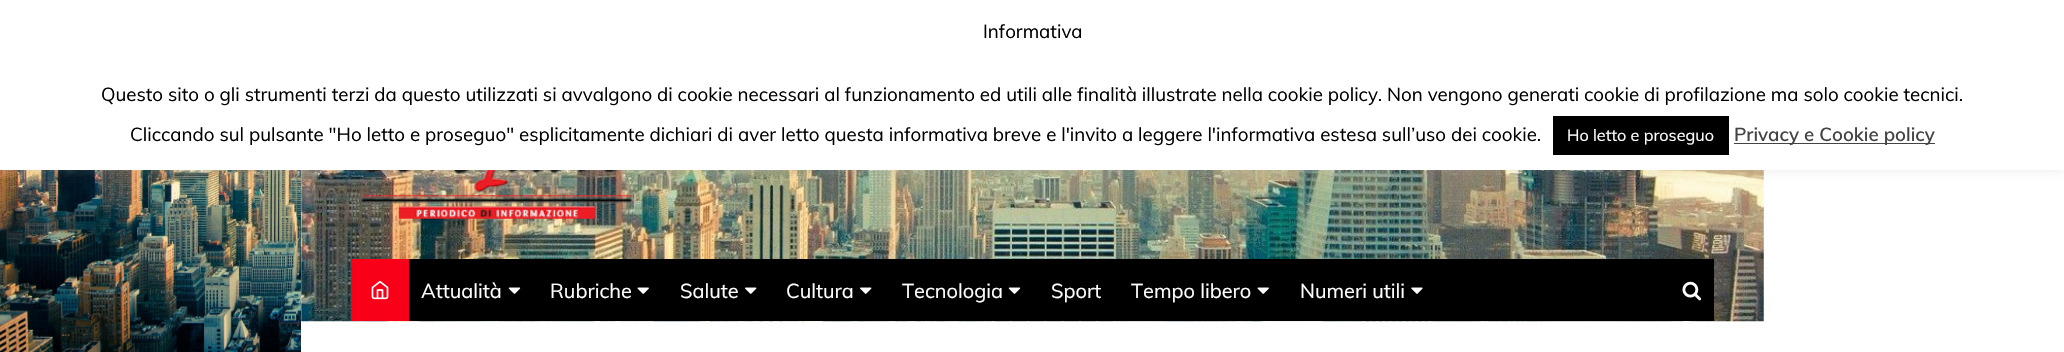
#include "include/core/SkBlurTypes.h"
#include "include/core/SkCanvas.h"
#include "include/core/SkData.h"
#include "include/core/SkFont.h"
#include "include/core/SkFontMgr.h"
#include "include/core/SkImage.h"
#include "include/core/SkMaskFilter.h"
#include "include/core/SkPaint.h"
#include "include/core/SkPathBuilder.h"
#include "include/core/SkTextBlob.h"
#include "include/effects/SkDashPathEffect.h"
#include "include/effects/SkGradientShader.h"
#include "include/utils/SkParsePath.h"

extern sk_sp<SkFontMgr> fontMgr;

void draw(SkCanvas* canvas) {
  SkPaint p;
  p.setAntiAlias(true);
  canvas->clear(SK_ColorWHITE);
  canvas->drawImageRect(SkImages::DeferredFromEncodedData(SkData::MakeFromFileName("images/1.png")), SkRect::MakeLTRB(0, 170, 301, 352), SkSamplingOptions());
  canvas->drawImageRect(SkImages::DeferredFromEncodedData(SkData::MakeFromFileName("images/2.png")), SkRect::MakeLTRB(301, 170, 1764, 322), SkSamplingOptions());
  canvas->drawImageRect(SkImages::DeferredFromEncodedData(SkData::MakeFromFileName("images/3.png")), SkRect::MakeLTRB(361, 170, 633, 219), SkSamplingOptions());
  p.setColor(SkColorSetARGB(77, 172, 171, 171));
  p.setMaskFilter(SkMaskFilter::MakeBlur(kNormal_SkBlurStyle, 6));
  canvas->drawRect(SkRect::MakeLTRB(0, -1, 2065, 169), p);
  p.setMaskFilter(nullptr);
  p.setColor(SK_ColorWHITE);
  canvas->drawRect(SkRect::MakeLTRB(0, 0, 2064, 170), p);
  p.setColor(SK_ColorBLACK);
  canvas->drawRect(SkRect::MakeLTRB(1553, 116, 1729, 155), p);
  p.setColor(SkColorSetRGB(68, 68, 68));
  canvas->drawRect(SkRect::MakeLTRB(1734, 143, 1935, 144), p);
  p.setColor(SK_ColorBLACK);
  canvas->drawRect(SkRect::MakeLTRB(409, 259, 1714, 321), p);
  p.setColor(SkColorSetRGB(247, 0, 24));
  canvas->drawRect(SkRect::MakeLTRB(351, 259, 409, 321), p);
  canvas->drawImageRect(SkImages::DeferredFromEncodedData(SkData::MakeFromFileName("images/4.png")), SkRect::MakeLTRB(371, 280, 389, 300), SkSamplingOptions());
  canvas->drawImageRect(SkImages::DeferredFromEncodedData(SkData::MakeFromFileName("images/5.png")), SkRect::MakeLTRB(508, 287, 521, 294), SkSamplingOptions());
  canvas->drawImageRect(SkImages::DeferredFromEncodedData(SkData::MakeFromFileName("images/6.png")), SkRect::MakeLTRB(637, 287, 649, 294), SkSamplingOptions());
  canvas->drawImageRect(SkImages::DeferredFromEncodedData(SkData::MakeFromFileName("images/7.png")), SkRect::MakeLTRB(745, 287, 757, 294), SkSamplingOptions());
  canvas->drawImageRect(SkImages::DeferredFromEncodedData(SkData::MakeFromFileName("images/7.png")), SkRect::MakeLTRB(860, 287, 872, 294), SkSamplingOptions());
  canvas->drawImageRect(SkImages::DeferredFromEncodedData(SkData::MakeFromFileName("images/5.png")), SkRect::MakeLTRB(1008, 287, 1021, 294), SkSamplingOptions());
  canvas->drawImageRect(SkImages::DeferredFromEncodedData(SkData::MakeFromFileName("images/6.png")), SkRect::MakeLTRB(1257, 287, 1269, 294), SkSamplingOptions());
  canvas->drawImageRect(SkImages::DeferredFromEncodedData(SkData::MakeFromFileName("images/8.png")), SkRect::MakeLTRB(1411, 287, 1423, 294), SkSamplingOptions());
  canvas->drawImageRect(SkImages::DeferredFromEncodedData(SkData::MakeFromFileName("images/9.png")), SkRect::MakeLTRB(1682, 281, 1701, 301), SkSamplingOptions());
  SkFont font1(fontMgr->matchFamilyStyle("Muli", SkFontStyle::Normal()), 18.75f);
  font1.setSubpixel(true);
  p.setColor(SK_ColorBLACK);
  canvas->drawString("Informativa", 983, 38, font1, p);
  canvas->drawString("Questo sito o gli strumenti terzi da questo utilizzati si avvalgono di cookie necessari al funzionamento ed utili alle finalità illustrate nella cookie policy. Non vengono generati cookie di profilazione ma solo cookie tecnici.", 101, 101, font1, p);
  canvas->drawString("Cliccando sul pulsante \"Ho letto e proseguo\" esplicitamente dichiari di aver letto questa informativa breve e l'invito a leggere l'informativa estesa sull’uso dei cookie.", 130, 141, font1, p);
  SkFont font2(fontMgr->matchFamilyStyle("Muli", SkFontStyle::Normal()), 16.25f);
  font2.setSubpixel(true);
  p.setColor(SK_ColorWHITE);
  canvas->drawString("Ho letto e proseguo", 1567, 141, font2, p);
  SkFont font3(fontMgr->matchFamilyStyle("Muli", SkFontStyle(600, SkFontStyle::kNormal_Width, SkFontStyle::kUpright_Slant)), 18.75f);
  font3.setSubpixel(true);
  p.setColor(SkColorSetRGB(68, 68, 68));
  canvas->drawString("Privacy e Cookie policy", 1734, 141, font3, p);
  SkFont font4(fontMgr->matchFamilyStyle("Muli", SkFontStyle::Normal()), 20);
  font4.setSubpixel(true);
  p.setColor(SK_ColorWHITE);
  canvas->drawString("Attualità", 421, 298, font4, p);
  canvas->drawString("Rubriche", 550, 298, font4, p);
  canvas->drawString("Salute", 680, 298, font4, p);
  canvas->drawString("Cultura", 786, 298, font4, p);
  canvas->drawString("Tecnologia", 902, 298, font4, p);
  canvas->drawString("Sport", 1051, 298, font4, p);
  canvas->drawString("Tempo libero", 1131, 298, font4, p);
  canvas->drawString("Numeri utili", 1300, 298, font4, p);
}
